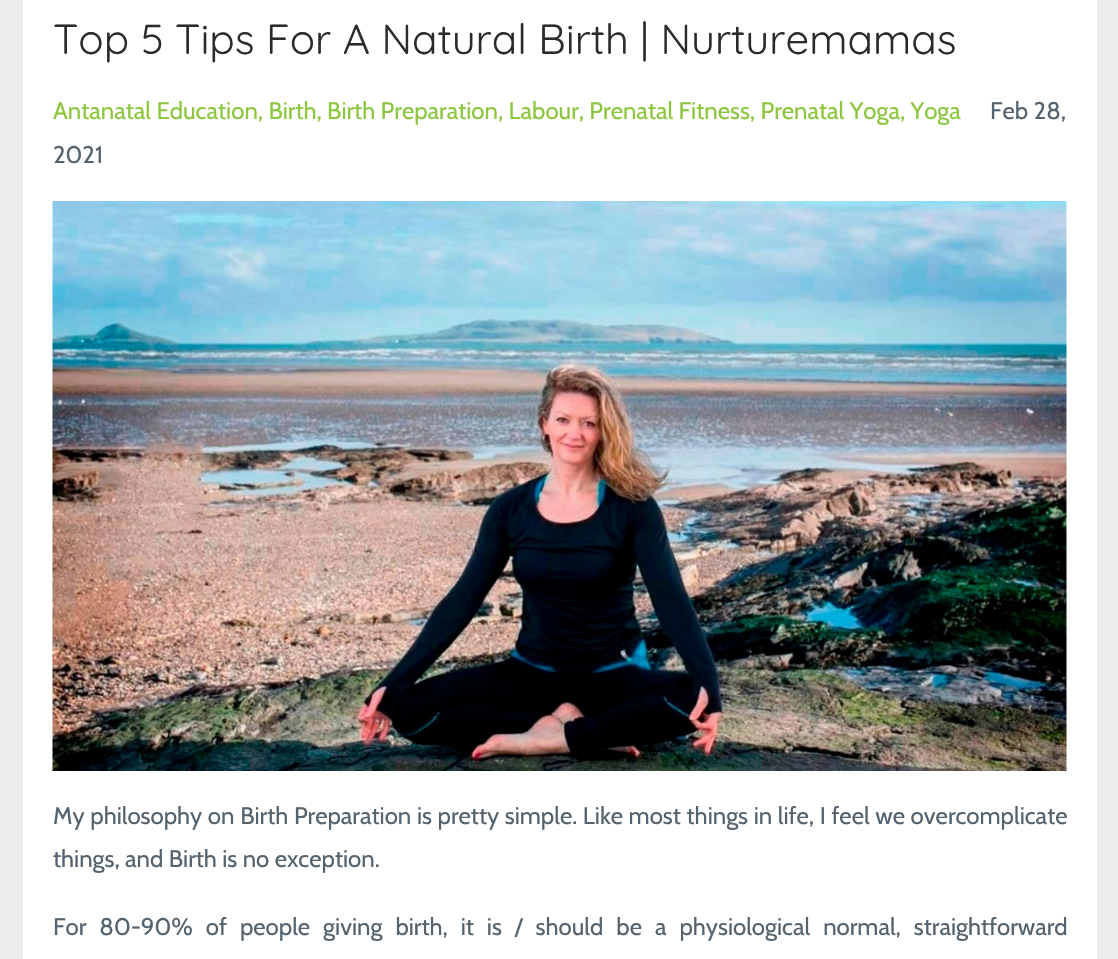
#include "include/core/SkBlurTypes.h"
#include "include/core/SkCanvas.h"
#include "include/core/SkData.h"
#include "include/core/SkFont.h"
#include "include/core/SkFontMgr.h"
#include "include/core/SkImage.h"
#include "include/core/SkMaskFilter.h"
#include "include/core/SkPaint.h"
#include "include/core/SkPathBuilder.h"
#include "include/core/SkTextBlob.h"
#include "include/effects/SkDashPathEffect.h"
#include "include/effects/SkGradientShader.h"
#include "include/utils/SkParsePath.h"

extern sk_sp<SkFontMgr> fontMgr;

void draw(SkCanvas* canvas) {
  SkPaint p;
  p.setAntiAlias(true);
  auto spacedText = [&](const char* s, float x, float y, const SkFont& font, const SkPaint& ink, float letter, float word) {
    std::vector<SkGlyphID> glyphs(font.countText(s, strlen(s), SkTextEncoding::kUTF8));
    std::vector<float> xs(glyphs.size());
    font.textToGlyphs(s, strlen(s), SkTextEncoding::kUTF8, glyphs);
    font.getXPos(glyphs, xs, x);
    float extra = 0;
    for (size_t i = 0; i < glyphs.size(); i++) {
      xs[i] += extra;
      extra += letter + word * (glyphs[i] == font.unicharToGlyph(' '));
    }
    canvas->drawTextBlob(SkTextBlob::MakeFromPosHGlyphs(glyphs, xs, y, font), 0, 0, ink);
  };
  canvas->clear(SkColorSetRGB(238, 238, 238));
  p.setColor(SK_ColorWHITE);
  canvas->drawRect(SkRect::MakeLTRB(23, 0, 1097, 959), p);
  canvas->drawImageRect(SkImages::DeferredFromEncodedData(SkData::MakeFromFileName("images/1.png")), SkRect::MakeLTRB(52, 201, 1067, 771), SkSamplingOptions());
  SkFont font1(fontMgr->matchFamilyStyle("Quicksand", SkFontStyle::Normal()), 42);
  font1.setSubpixel(true);
  p.setColor(SkColorSetRGB(43, 43, 45));
  canvas->drawString("Top 5 Tips For A Natural Birth | Nurturemamas", 53, 54, font1, p);
  SkFont font2(fontMgr->matchFamilyStyle("Cabin", SkFontStyle::Normal()), 24);
  font2.setSubpixel(true);
  p.setColor(SkColorSetRGB(141, 198, 63));
  canvas->drawString("Antanatal Education, Birth, Birth Preparation, Labour, Prenatal Fitness, Prenatal Yoga, Yoga", 53, 119, font2, p);
  p.setColor(SkColorSetRGB(85, 99, 111));
  canvas->drawString("Feb 28,", 990, 119, font2, p);
  canvas->drawString("2021", 53, 163, font2, p);
  spacedText("My philosophy on Birth Preparation is pretty simple. Like most things in life, I feel we overcomplicate", 53, 824, font2, p, 0, 0.25f);
  canvas->drawString("things, and Birth is no exception.", 53, 867, font2, p);
  spacedText("For 80-90% of people giving birth, it is / should be a physiological normal, straightforward", 53, 935, font2, p, 0, 7.6f);
}
